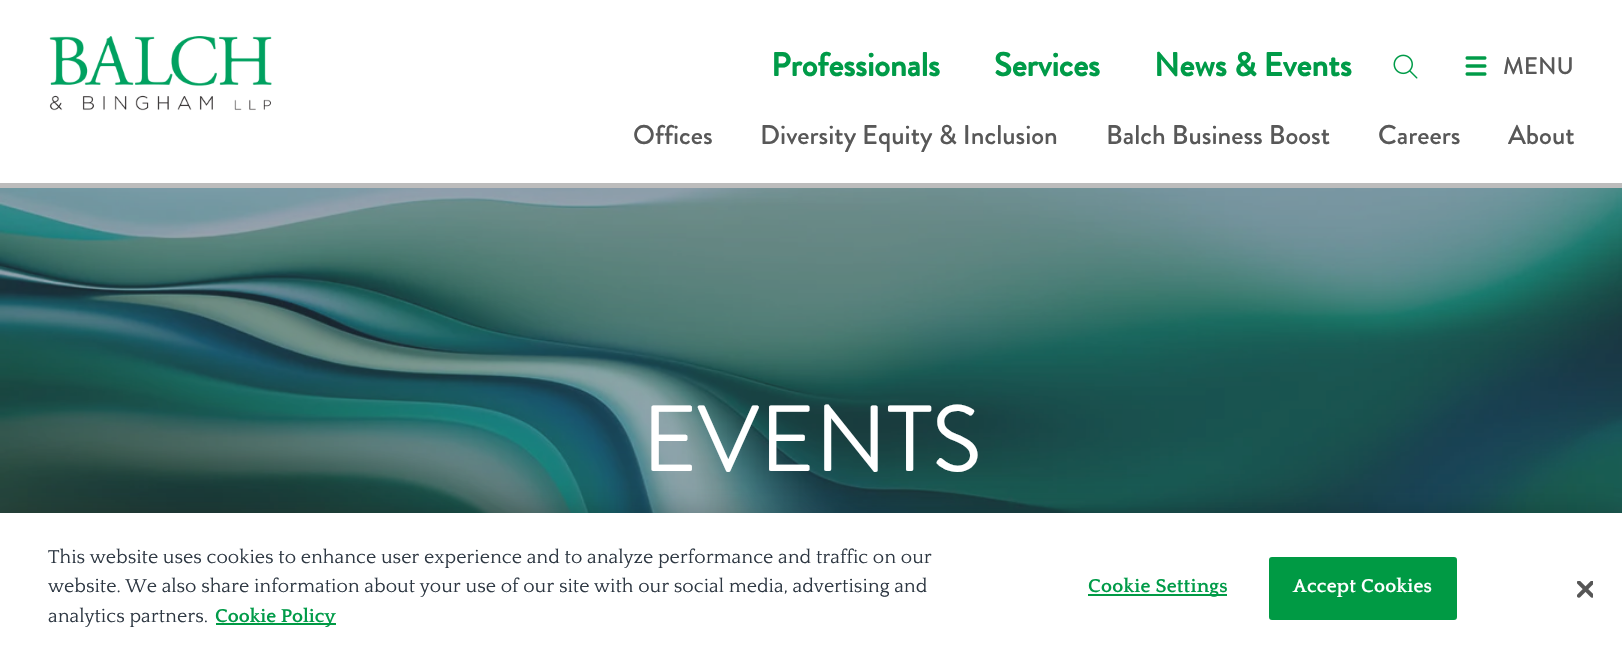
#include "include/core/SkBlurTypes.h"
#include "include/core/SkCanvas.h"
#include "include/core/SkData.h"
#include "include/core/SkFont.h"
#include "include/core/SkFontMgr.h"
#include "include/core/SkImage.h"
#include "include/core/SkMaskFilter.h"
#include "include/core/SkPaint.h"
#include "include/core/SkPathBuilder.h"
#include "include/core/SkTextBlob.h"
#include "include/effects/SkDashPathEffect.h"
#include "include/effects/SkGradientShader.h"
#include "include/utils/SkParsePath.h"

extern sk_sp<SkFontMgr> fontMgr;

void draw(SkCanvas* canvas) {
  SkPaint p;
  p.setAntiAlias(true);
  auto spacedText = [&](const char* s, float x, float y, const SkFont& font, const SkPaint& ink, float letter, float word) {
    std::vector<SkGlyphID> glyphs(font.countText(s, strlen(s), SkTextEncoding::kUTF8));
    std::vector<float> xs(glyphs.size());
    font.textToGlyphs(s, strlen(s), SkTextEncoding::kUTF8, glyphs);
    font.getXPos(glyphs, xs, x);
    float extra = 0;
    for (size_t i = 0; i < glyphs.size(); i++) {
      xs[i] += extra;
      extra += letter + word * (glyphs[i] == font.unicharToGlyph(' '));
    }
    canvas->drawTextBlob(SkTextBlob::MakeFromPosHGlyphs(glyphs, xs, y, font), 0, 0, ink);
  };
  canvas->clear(SK_ColorWHITE);
  canvas->drawImageRect(SkImages::DeferredFromEncodedData(SkData::MakeFromFileName("images/1.png")), SkRect::MakeLTRB(49, 36, 272, 111), SkSamplingOptions());
  canvas->drawImageRect(SkImages::DeferredFromEncodedData(SkData::MakeFromFileName("images/2.png")), SkRect::MakeLTRB(1393, 54, 1418, 79), SkSamplingOptions());
  canvas->drawImageRect(SkImages::DeferredFromEncodedData(SkData::MakeFromFileName("images/3.png")), SkRect::MakeLTRB(1465, 56, 1487, 76), SkSamplingOptions());
  p.setColor(SkColorSetRGB(188, 188, 188));
  canvas->drawRect(SkRect::MakeLTRB(0, 183, 1622, 188), p);
  canvas->drawImageRect(SkImages::DeferredFromEncodedData(SkData::MakeFromFileName("images/4.png")), SkRect::MakeLTRB(0, 188, 1622, 513), SkSamplingOptions());
  p.setColor(SkColorSetARGB(51, 0, 0, 0));
  p.setMaskFilter(SkMaskFilter::MakeBlur(kNormal_SkBlurStyle, 13.5f));
  canvas->drawRect(SkRect::MakeLTRB(0, 513, 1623, 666), p);
  p.setMaskFilter(nullptr);
  p.setColor(SK_ColorWHITE);
  canvas->drawRect(SkRect::MakeLTRB(0, 513, 1622, 665), p);
  p.setColor(SkColorSetRGB(0, 154, 68));
  canvas->drawRect(SkRect::MakeLTRB(216, 623, 336, 625), p);
  canvas->drawRect(SkRect::MakeLTRB(1088, 594, 1227, 596), p);
  canvas->drawRoundRect(SkRect::MakeLTRB(1270, 558, 1456, 619), 2, 2, p);
  p.setStyle(SkPaint::kStroke_Style);
  p.setStrokeWidth(2);
  canvas->drawRoundRect(SkRect::MakeLTRB(1270, 558, 1456, 619), 2, 2, p);
  canvas->drawImageRect(SkImages::DeferredFromEncodedData(SkData::MakeFromFileName("images/5.png")), SkRect::MakeLTRB(1577, 581, 1593, 598), SkSamplingOptions());
  SkFont font1(fontMgr->matchFamilyStyle("Brandon Grotesque", SkFontStyle::Bold()), 33);
  font1.setSubpixel(true);
  p.setStyle(SkPaint::kFill_Style);
  p.setColor(SkColorSetRGB(0, 155, 72));
  canvas->drawString("Professionals", 771, 76, font1, p);
  canvas->drawString("Services", 994, 76, font1, p);
  canvas->drawString("News & Events", 1154, 76, font1, p);
  SkFont font2(fontMgr->matchFamilyStyle("Brandon Grotesque", SkFontStyle(500, SkFontStyle::kNormal_Width, SkFontStyle::kUpright_Slant)), 24);
  font2.setSubpixel(true);
  p.setColor(SkColorSetRGB(88, 88, 88));
  canvas->drawString("MENU", 1503, 74, font2, p);
  SkFont font3(fontMgr->matchFamilyStyle("Brandon Grotesque", SkFontStyle(500, SkFontStyle::kNormal_Width, SkFontStyle::kUpright_Slant)), 27);
  font3.setSubpixel(true);
  canvas->drawString("Offices", 633, 144, font3, p);
  canvas->drawString("Diversity Equity & Inclusion", 760, 144, font3, p);
  canvas->drawString("Balch Business Boost", 1106, 144, font3, p);
  canvas->drawString("Careers", 1378, 144, font3, p);
  canvas->drawString("About", 1508, 144, font3, p);
  SkFont font4(fontMgr->matchFamilyStyle("Brandon Grotesque", SkFontStyle::Normal()), 93.5f);
  font4.setSubpixel(true);
  p.setColor(SK_ColorWHITE);
  canvas->drawString("EVENTS", 642, 471, font4, p);
  SkFont font5(fontMgr->matchFamilyStyle("Quattrocento", SkFontStyle::Normal()), 19.5f);
  font5.setSubpixel(true);
  p.setColor(SkColorSetRGB(45, 55, 66));
  canvas->drawString("This website uses cookies to enhance user experience and to analyze performance and traffic on our", 48, 563, font5, p);
  canvas->drawString("website. We also share information about your use of our site with our social media, advertising and", 48, 592, font5, p);
  canvas->drawString("analytics partners.", 48, 622, font5, p);
  SkFont font6(fontMgr->matchFamilyStyle("Quattrocento", SkFontStyle::Bold()), 19.5f);
  font6.setSubpixel(true);
  p.setColor(SkColorSetRGB(0, 155, 72));
  canvas->drawString("Cookie Policy", 215, 622, font6, p);
  spacedText("Cookie Settings", 1088, 592, font6, p, 0.25f, 0);
  p.setColor(SK_ColorWHITE);
  spacedText("Accept Cookies", 1293, 592, font6, p, 0.25f, 0);
}
